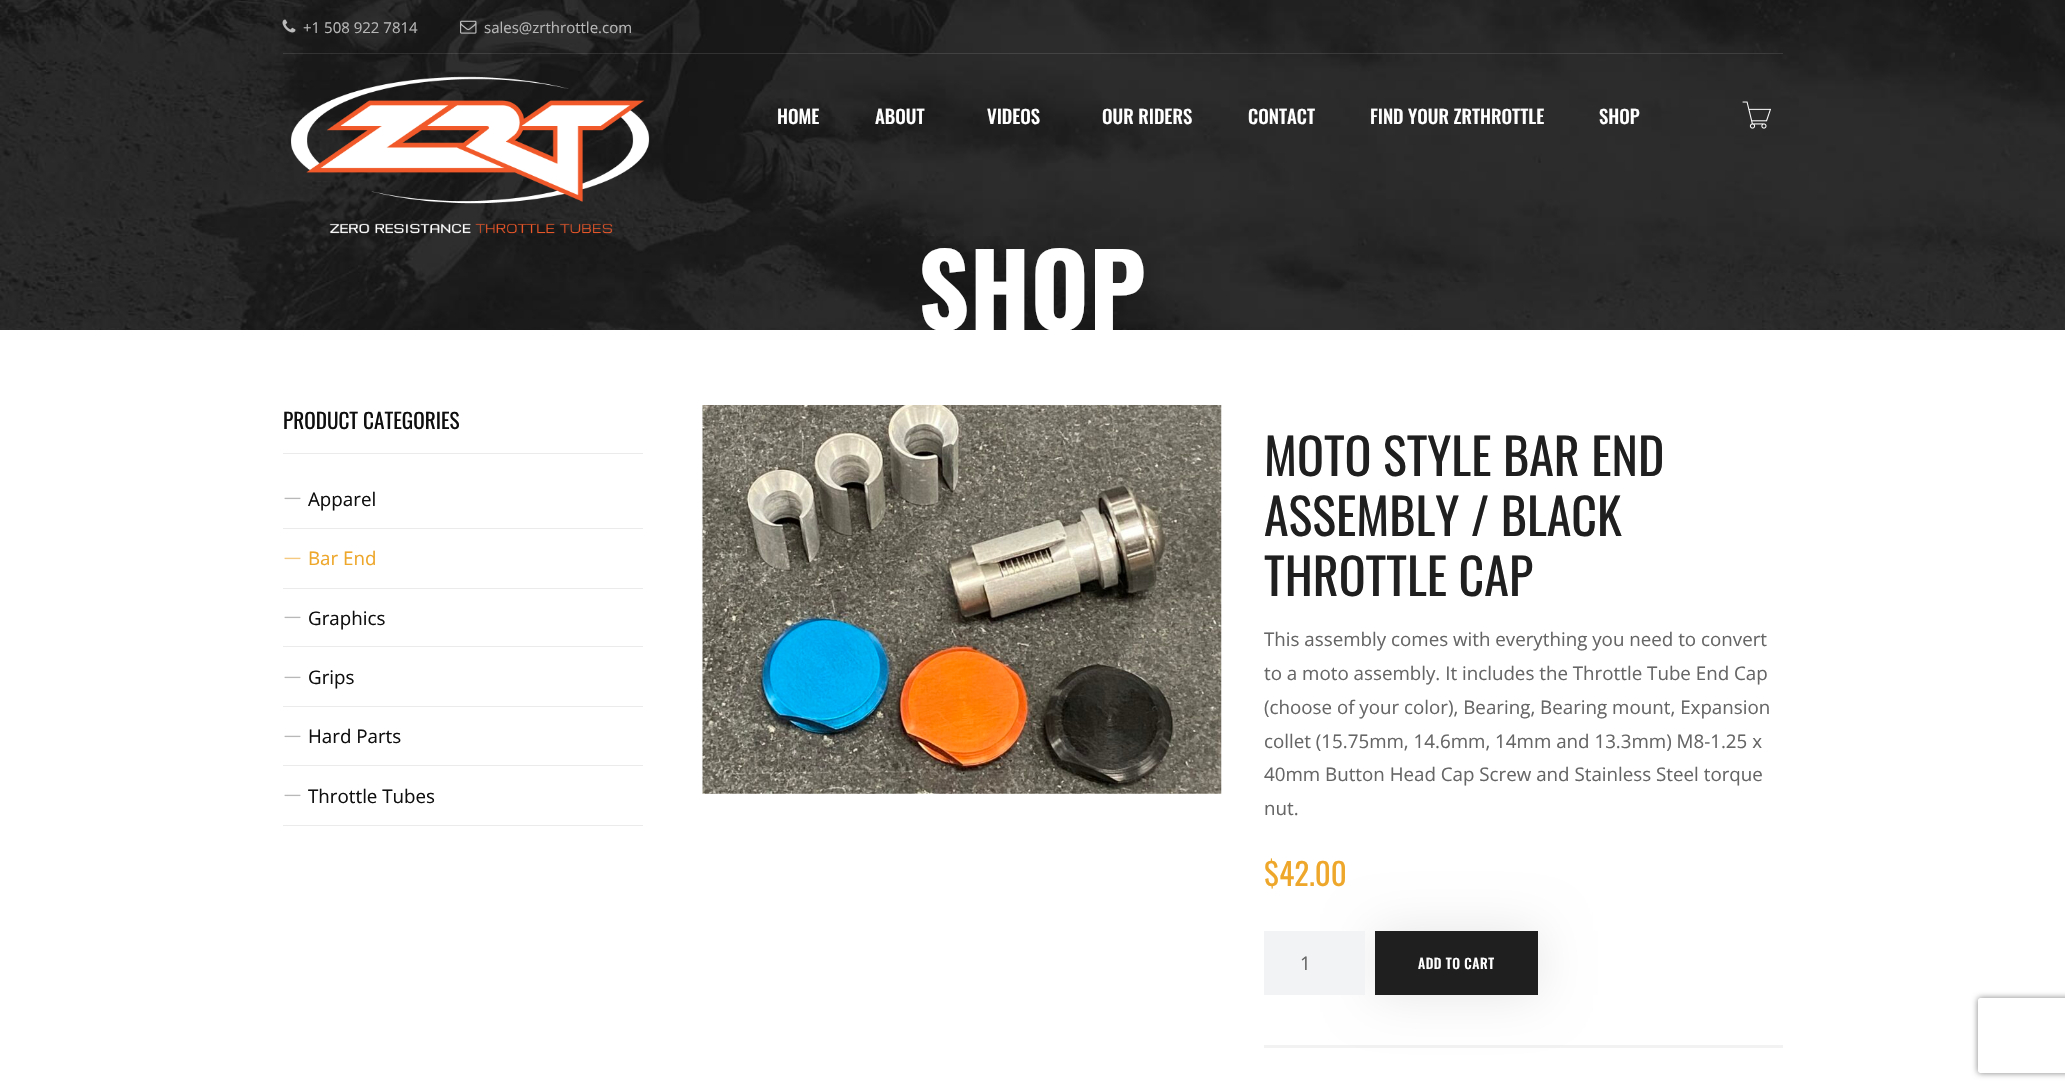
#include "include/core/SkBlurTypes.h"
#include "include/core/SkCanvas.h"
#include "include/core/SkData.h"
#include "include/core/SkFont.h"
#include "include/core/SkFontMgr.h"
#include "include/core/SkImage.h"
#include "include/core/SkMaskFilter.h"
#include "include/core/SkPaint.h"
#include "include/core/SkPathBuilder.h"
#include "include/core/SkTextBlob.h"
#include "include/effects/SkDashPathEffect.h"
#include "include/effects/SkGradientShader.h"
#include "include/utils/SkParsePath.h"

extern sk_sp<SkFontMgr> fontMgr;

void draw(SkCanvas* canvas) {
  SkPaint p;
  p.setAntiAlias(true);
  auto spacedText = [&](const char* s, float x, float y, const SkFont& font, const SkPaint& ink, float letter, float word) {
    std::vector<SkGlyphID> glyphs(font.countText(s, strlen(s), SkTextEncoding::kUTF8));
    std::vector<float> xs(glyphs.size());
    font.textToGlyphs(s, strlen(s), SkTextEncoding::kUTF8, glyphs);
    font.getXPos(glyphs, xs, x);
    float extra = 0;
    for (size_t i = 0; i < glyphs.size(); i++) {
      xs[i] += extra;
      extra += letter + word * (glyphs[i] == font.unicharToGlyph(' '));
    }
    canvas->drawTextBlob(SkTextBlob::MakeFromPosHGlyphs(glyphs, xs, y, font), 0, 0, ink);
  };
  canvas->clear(SK_ColorWHITE);
  canvas->drawImageRect(SkImages::DeferredFromEncodedData(SkData::MakeFromFileName("images/5.png")), SkRect::MakeLTRB(0, 0, 2065, 330), SkSamplingOptions());
  p.setColor(SkColorSetARGB(28, 255, 255, 255));
  canvas->drawRect(SkRect::MakeLTRB(283, 53, 1783, 54), p);
  canvas->drawImageRect(SkImages::DeferredFromEncodedData(SkData::MakeFromFileName("images/1.png")), SkRect::MakeLTRB(282, 19, 296, 33), SkSamplingOptions());
  canvas->drawImageRect(SkImages::DeferredFromEncodedData(SkData::MakeFromFileName("images/2.png")), SkRect::MakeLTRB(460, 20, 477, 34), SkSamplingOptions());
  canvas->drawImageRect(SkImages::DeferredFromEncodedData(SkData::MakeFromFileName("images/3.png")), SkRect::MakeLTRB(291, 76, 650, 234), SkSamplingOptions());
  canvas->drawImageRect(SkImages::DeferredFromEncodedData(SkData::MakeFromFileName("images/4.png")), SkRect::MakeLTRB(1742, 101, 1771, 129), SkSamplingOptions());
  p.setColor(SkColorSetRGB(235, 235, 235));
  canvas->drawRect(SkRect::MakeLTRB(283, 453, 643, 454), p);
  canvas->drawRect(SkRect::MakeLTRB(283, 528, 643, 529), p);
  canvas->drawRect(SkRect::MakeLTRB(283, 588, 643, 589), p);
  canvas->drawRect(SkRect::MakeLTRB(283, 646, 643, 647), p);
  canvas->drawRect(SkRect::MakeLTRB(283, 706, 643, 707), p);
  canvas->drawRect(SkRect::MakeLTRB(283, 765, 643, 766), p);
  canvas->drawRect(SkRect::MakeLTRB(283, 825, 643, 826), p);
  canvas->drawImageRect(SkImages::DeferredFromEncodedData(SkData::MakeFromFileName("images/6.png")), SkRect::MakeLTRB(702, 405, 1222, 794), SkSamplingOptions());
  p.setColor(SkColorSetRGB(242, 242, 242));
  canvas->drawRect(SkRect::MakeLTRB(1264, 1045, 1783, 1048), p);
  p.setColor(SkColorSetARGB(26, 0, 0, 0));
  p.setMaskFilter(SkMaskFilter::MakeBlur(kNormal_SkBlurStyle, 25));
  canvas->drawRect(SkRect::MakeLTRB(1375, 931, 1538, 995), p);
  p.setMaskFilter(nullptr);
  p.setColor(SkColorSetRGB(242, 243, 245));
  canvas->drawRect(SkRect::MakeLTRB(1264, 931, 1365, 995), p);
  p.setColor(SkColorSetRGB(31, 31, 31));
  canvas->drawRect(SkRect::MakeLTRB(1375, 931, 1538, 995), p);
  canvas->save();
  canvas->clipPath(SkPathBuilder(SkPathFillType::kEvenOdd).moveTo(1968, 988).lineTo(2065, 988).lineTo(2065, 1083).lineTo(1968, 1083).close().moveTo(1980.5f, 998).lineTo(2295.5f, 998).cubicTo(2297, 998, 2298, 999, 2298, 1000.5f).lineTo(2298, 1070.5f).cubicTo(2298, 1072, 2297, 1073, 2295.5f, 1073).lineTo(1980.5f, 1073).cubicTo(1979, 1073, 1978, 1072, 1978, 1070.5f).lineTo(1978, 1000.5f).cubicTo(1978, 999, 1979, 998, 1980.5f, 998).close().detach(), true);
  p.setColor(SkColorSetRGB(128, 128, 128));
  p.setMaskFilter(SkMaskFilter::MakeBlur(kNormal_SkBlurStyle, 3));
  canvas->drawRoundRect(SkRect::MakeLTRB(1978, 998, 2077, 1073), 2.5f, 2.5f, p);
  p.setMaskFilter(nullptr);
  canvas->restore();
  SkFont font1(fontMgr->matchFamilyStyle("Open Sans", SkFontStyle::Normal()), 15);
  font1.setSubpixel(true);
  p.setColor(SkColorSetRGB(184, 184, 184));
  canvas->drawString("+1 508 922 7814", 303, 33, font1, p);
  canvas->drawString("sales@zrthrottle.com", 484, 33, font1, p);
  SkFont font2(fontMgr->matchFamilyStyle("Oswald", SkFontStyle(500, SkFontStyle::kNormal_Width, SkFontStyle::kUpright_Slant)), 18.75f);
  font2.setSubpixel(true);
  p.setColor(SK_ColorWHITE);
  canvas->drawString("HOME", 777, 124, font2, p);
  canvas->drawString("ABOUT", 875, 124, font2, p);
  canvas->drawString("VIDEOS", 987, 124, font2, p);
  canvas->drawString("OUR RIDERS", 1102, 124, font2, p);
  canvas->drawString("CONTACT", 1248, 124, font2, p);
  canvas->drawString("FIND YOUR ZRTHROTTLE", 1370, 124, font2, p);
  canvas->drawString("SHOP", 1599, 124, font2, p);
  SkFont font3(fontMgr->matchFamilyStyle("Oswald", SkFontStyle::Bold()), 100);
  font3.setSubpixel(true);
  canvas->drawString("SHOP", 918, 330, font3, p);
  SkFont font4(fontMgr->matchFamilyStyle("Oswald", SkFontStyle::Normal()), 21.25f);
  font4.setSubpixel(true);
  p.setColor(SkColorSetRGB(15, 15, 16));
  canvas->drawString("PRODUCT CATEGORIES", 283, 429, font4, p);
  SkFont font5(fontMgr->matchFamilyStyle("Open Sans", SkFontStyle::Normal()), 17);
  font5.setSubpixel(true);
  p.setColor(SkColorSetRGB(184, 184, 184));
  canvas->drawString("—", 284, 503, font5, p);
  SkFont font6(fontMgr->matchFamilyStyle("Open Sans", SkFontStyle::Normal()), 18.75f);
  font6.setSubpixel(true);
  p.setColor(SkColorSetRGB(15, 15, 16));
  canvas->drawString("Apparel", 308, 506, font6, p);
  p.setColor(SkColorSetRGB(245, 202, 128));
  canvas->drawString("—", 284, 563, font5, p);
  p.setColor(SkColorSetRGB(238, 167, 43));
  canvas->drawString("Bar End", 308, 565, font6, p);
  p.setColor(SkColorSetRGB(184, 184, 184));
  canvas->drawString("—", 284, 622, font5, p);
  p.setColor(SkColorSetRGB(15, 15, 16));
  canvas->drawString("Graphics", 308, 625, font6, p);
  p.setColor(SkColorSetRGB(184, 184, 184));
  canvas->drawString("—", 284, 682, font5, p);
  p.setColor(SkColorSetRGB(15, 15, 16));
  canvas->drawString("Grips", 308, 684, font6, p);
  p.setColor(SkColorSetRGB(184, 184, 184));
  canvas->drawString("—", 284, 741, font5, p);
  p.setColor(SkColorSetRGB(15, 15, 16));
  canvas->drawString("Hard Parts", 308, 743, font6, p);
  p.setColor(SkColorSetRGB(184, 184, 184));
  canvas->drawString("—", 284, 800, font5, p);
  p.setColor(SkColorSetRGB(15, 15, 16));
  canvas->drawString("Throttle Tubes", 308, 803, font6, p);
  SkFont font7(fontMgr->matchFamilyStyle("Oswald", SkFontStyle::Normal()), 50);
  font7.setSubpixel(true);
  p.setColor(SkColorSetRGB(31, 31, 31));
  canvas->drawString("MOTO STYLE BAR END", 1264, 476, font7, p);
  canvas->drawString("ASSEMBLY / BLACK", 1264, 536, font7, p);
  canvas->drawString("THROTTLE CAP", 1264, 596, font7, p);
  p.setColor(SkColorSetRGB(102, 102, 102));
  canvas->drawString("This assembly comes with everything you need to convert", 1264, 646, font6, p);
  canvas->drawString("to a moto assembly. It includes the Throttle Tube End Cap", 1264, 680, font6, p);
  canvas->drawString("(choose of your color), Bearing, Bearing mount, Expansion", 1264, 714, font6, p);
  canvas->drawString("collet (15.75mm, 14.6mm, 14mm and 13.3mm) M8-1.25 x", 1264, 748, font6, p);
  canvas->drawString("40mm Button Head Cap Screw and Stainless Steel torque", 1264, 781, font6, p);
  canvas->drawString("nut.", 1264, 815, font6, p);
  SkFont font8(fontMgr->matchFamilyStyle("Oswald", SkFontStyle::Normal()), 31);
  font8.setSubpixel(true);
  p.setColor(SkColorSetRGB(238, 167, 43));
  canvas->drawString("$42.00", 1264, 886, font8, p);
  p.setColor(SkColorSetRGB(102, 102, 102));
  canvas->drawString("1", 1300, 970, font6, p);
  SkFont font9(fontMgr->matchFamilyStyle("Oswald", SkFontStyle(500, SkFontStyle::kNormal_Width, SkFontStyle::kUpright_Slant)), 13.75f);
  font9.setSubpixel(true);
  p.setColor(SK_ColorWHITE);
  spacedText("ADD TO CART", 1418, 969, font9, p, 0.5f, 0);
}
